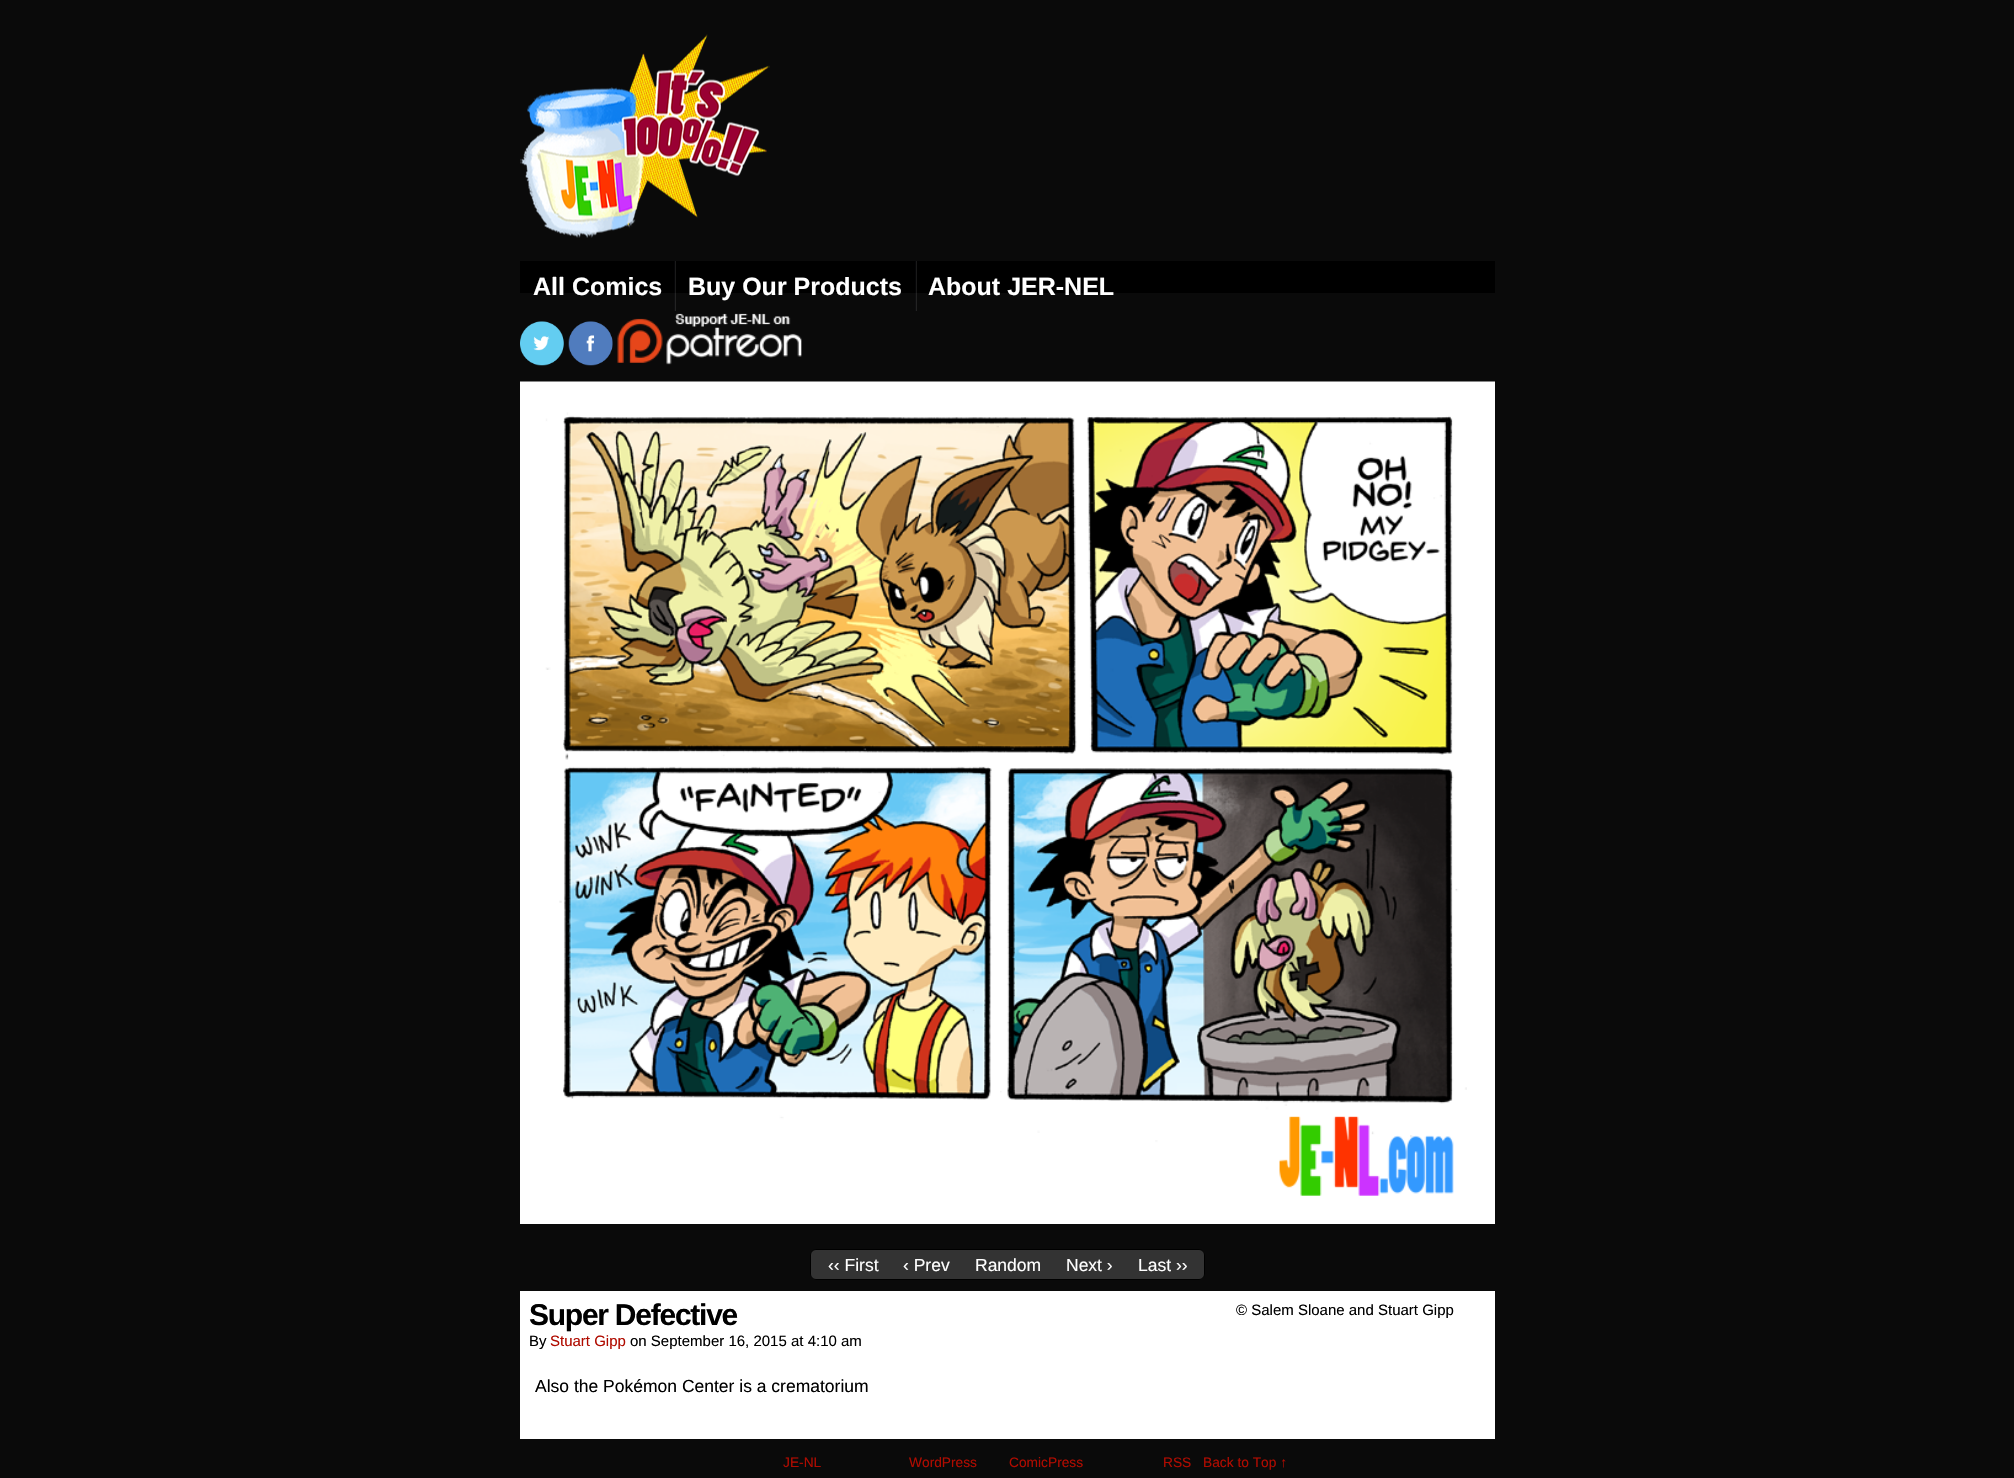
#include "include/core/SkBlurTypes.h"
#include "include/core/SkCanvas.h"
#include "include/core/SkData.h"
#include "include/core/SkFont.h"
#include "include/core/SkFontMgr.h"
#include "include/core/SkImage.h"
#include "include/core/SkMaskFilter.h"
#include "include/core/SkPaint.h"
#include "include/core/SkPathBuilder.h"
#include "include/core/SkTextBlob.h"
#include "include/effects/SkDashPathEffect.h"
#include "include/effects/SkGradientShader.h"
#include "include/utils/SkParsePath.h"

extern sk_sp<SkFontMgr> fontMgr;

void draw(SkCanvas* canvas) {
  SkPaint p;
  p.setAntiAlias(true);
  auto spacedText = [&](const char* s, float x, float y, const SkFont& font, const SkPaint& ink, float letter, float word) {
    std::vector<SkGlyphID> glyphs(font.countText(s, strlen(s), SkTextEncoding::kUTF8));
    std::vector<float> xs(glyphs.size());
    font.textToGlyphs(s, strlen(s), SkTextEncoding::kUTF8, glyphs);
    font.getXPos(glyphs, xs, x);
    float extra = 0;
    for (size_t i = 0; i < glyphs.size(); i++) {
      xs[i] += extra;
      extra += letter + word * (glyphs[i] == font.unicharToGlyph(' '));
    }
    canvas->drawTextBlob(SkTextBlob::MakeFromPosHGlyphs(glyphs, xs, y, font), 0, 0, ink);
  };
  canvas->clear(SkColorSetRGB(10, 10, 10));
  p.setColor(SkColorSetRGB(14, 14, 16));
  canvas->drawRect(SkRect::MakeLTRB(915, 293, 916, 311), p);
  p.setColor(SkColorSetRGB(35, 35, 35));
  canvas->drawRect(SkRect::MakeLTRB(916, 293, 917, 311), p);
  p.setColor(SkColorSetRGB(14, 14, 16));
  canvas->drawRect(SkRect::MakeLTRB(674, 293, 675, 311), p);
  p.setColor(SkColorSetRGB(35, 35, 35));
  canvas->drawRect(SkRect::MakeLTRB(675, 293, 676, 311), p);
  canvas->drawImageRect(SkImages::DeferredFromEncodedData(SkData::MakeFromFileName("images/1.png")), SkRect::MakeLTRB(520, 34, 770, 238), SkSamplingOptions());
  p.setColor(SK_ColorBLACK);
  canvas->drawRect(SkRect::MakeLTRB(520, 261, 1495, 293), p);
  p.setColor(SkColorSetRGB(5, 5, 7));
  canvas->drawRect(SkRect::MakeLTRB(915, 261, 916, 293), p);
  p.setColor(SkColorSetRGB(26, 26, 26));
  canvas->drawRect(SkRect::MakeLTRB(916, 261, 917, 293), p);
  p.setColor(SkColorSetRGB(5, 5, 7));
  canvas->drawRect(SkRect::MakeLTRB(674, 261, 675, 293), p);
  p.setColor(SkColorSetRGB(26, 26, 26));
  canvas->drawRect(SkRect::MakeLTRB(675, 261, 676, 293), p);
  canvas->drawImageRect(SkImages::DeferredFromEncodedData(SkData::MakeFromFileName("images/2.png")), SkRect::MakeLTRB(520, 321, 564, 366), SkSamplingOptions());
  canvas->drawImageRect(SkImages::DeferredFromEncodedData(SkData::MakeFromFileName("images/3.png")), SkRect::MakeLTRB(568, 321, 613, 366), SkSamplingOptions());
  canvas->drawImageRect(SkImages::DeferredFromEncodedData(SkData::MakeFromFileName("images/4.png")), SkRect::MakeLTRB(617, 313, 802, 365), SkSamplingOptions());
  canvas->drawImageRect(SkImages::DeferredFromEncodedData(SkData::MakeFromFileName("images/5.png")), SkRect::MakeLTRB(520, 381, 1495, 1224), SkSamplingOptions());
  p.setColor(SkColorSetRGB(51, 51, 51));
  canvas->drawRoundRect(SkRect::MakeLTRB(810.5f, 1249.5f, 1204.5f, 1279.5f), 5.5f, 5.5f, p);
  p.setStyle(SkPaint::kStroke_Style);
  p.setStrokeWidth(1);
  p.setColor(SK_ColorBLACK);
  canvas->drawRoundRect(SkRect::MakeLTRB(810.5f, 1249.5f, 1204.5f, 1279.5f), 5.5f, 5.5f, p);
  p.setStyle(SkPaint::kFill_Style);
  p.setColor(SK_ColorWHITE);
  canvas->drawRect(SkRect::MakeLTRB(520, 1291, 1495, 1439), p);
  SkFont font1(fontMgr->matchFamilyStyle("Liberation Sans", SkFontStyle::Bold()), 25);
  font1.setSubpixel(true);
  canvas->drawString("All Comics", 533, 295, font1, p);
  canvas->drawString("Buy Our Products", 688, 295, font1, p);
  canvas->drawString("About JER-NEL", 928, 295, font1, p);
  SkFont font2(fontMgr->matchFamilyStyle("Liberation Sans", SkFontStyle::Normal()), 17.5f);
  font2.setSubpixel(true);
  canvas->drawString("‹‹ First", 828, 1271, font2, p);
  canvas->drawString("‹ Prev", 903, 1271, font2, p);
  canvas->drawString("Random", 975, 1271, font2, p);
  canvas->drawString("Next ›", 1066, 1271, font2, p);
  canvas->drawString("Last ››", 1138, 1271, font2, p);
  SkFont font3(fontMgr->matchFamilyStyle("Liberation Sans", SkFontStyle::Bold()), 30);
  font3.setSubpixel(true);
  p.setColor(SK_ColorBLACK);
  spacedText("Super Defective", 529, 1325, font3, p, -1.25f, 0);
  SkFont font4(fontMgr->matchFamilyStyle("Liberation Sans", SkFontStyle::Normal()), 15);
  font4.setSubpixel(true);
  canvas->drawString("By", 529, 1346, font4, p);
  p.setColor(SkColorSetRGB(176, 11, 0));
  canvas->drawString("Stuart Gipp", 550, 1346, font4, p);
  p.setColor(SK_ColorBLACK);
  canvas->drawString("on September 16, 2015 at 4:10 am", 630, 1346, font4, p);
  canvas->drawString("Also the Pokémon Center is a crematorium", 535, 1392, font2, p);
  canvas->drawString("© Salem Sloane and Stuart Gipp", 1236, 1315, font4, p);
  SkFont font5(fontMgr->matchFamilyStyle("Liberation Sans", SkFontStyle::Normal()), 13.75f);
  font5.setSubpixel(true);
  p.setColor(SkColorSetRGB(176, 11, 0));
  canvas->drawString("JE-NL", 783, 1467, font5, p);
  canvas->drawString("WordPress", 909, 1467, font5, p);
  canvas->drawString("ComicPress", 1009, 1467, font5, p);
  canvas->drawString("RSS", 1163, 1467, font5, p);
  canvas->drawString("Back to Top ↑", 1203, 1467, font5, p);
}
